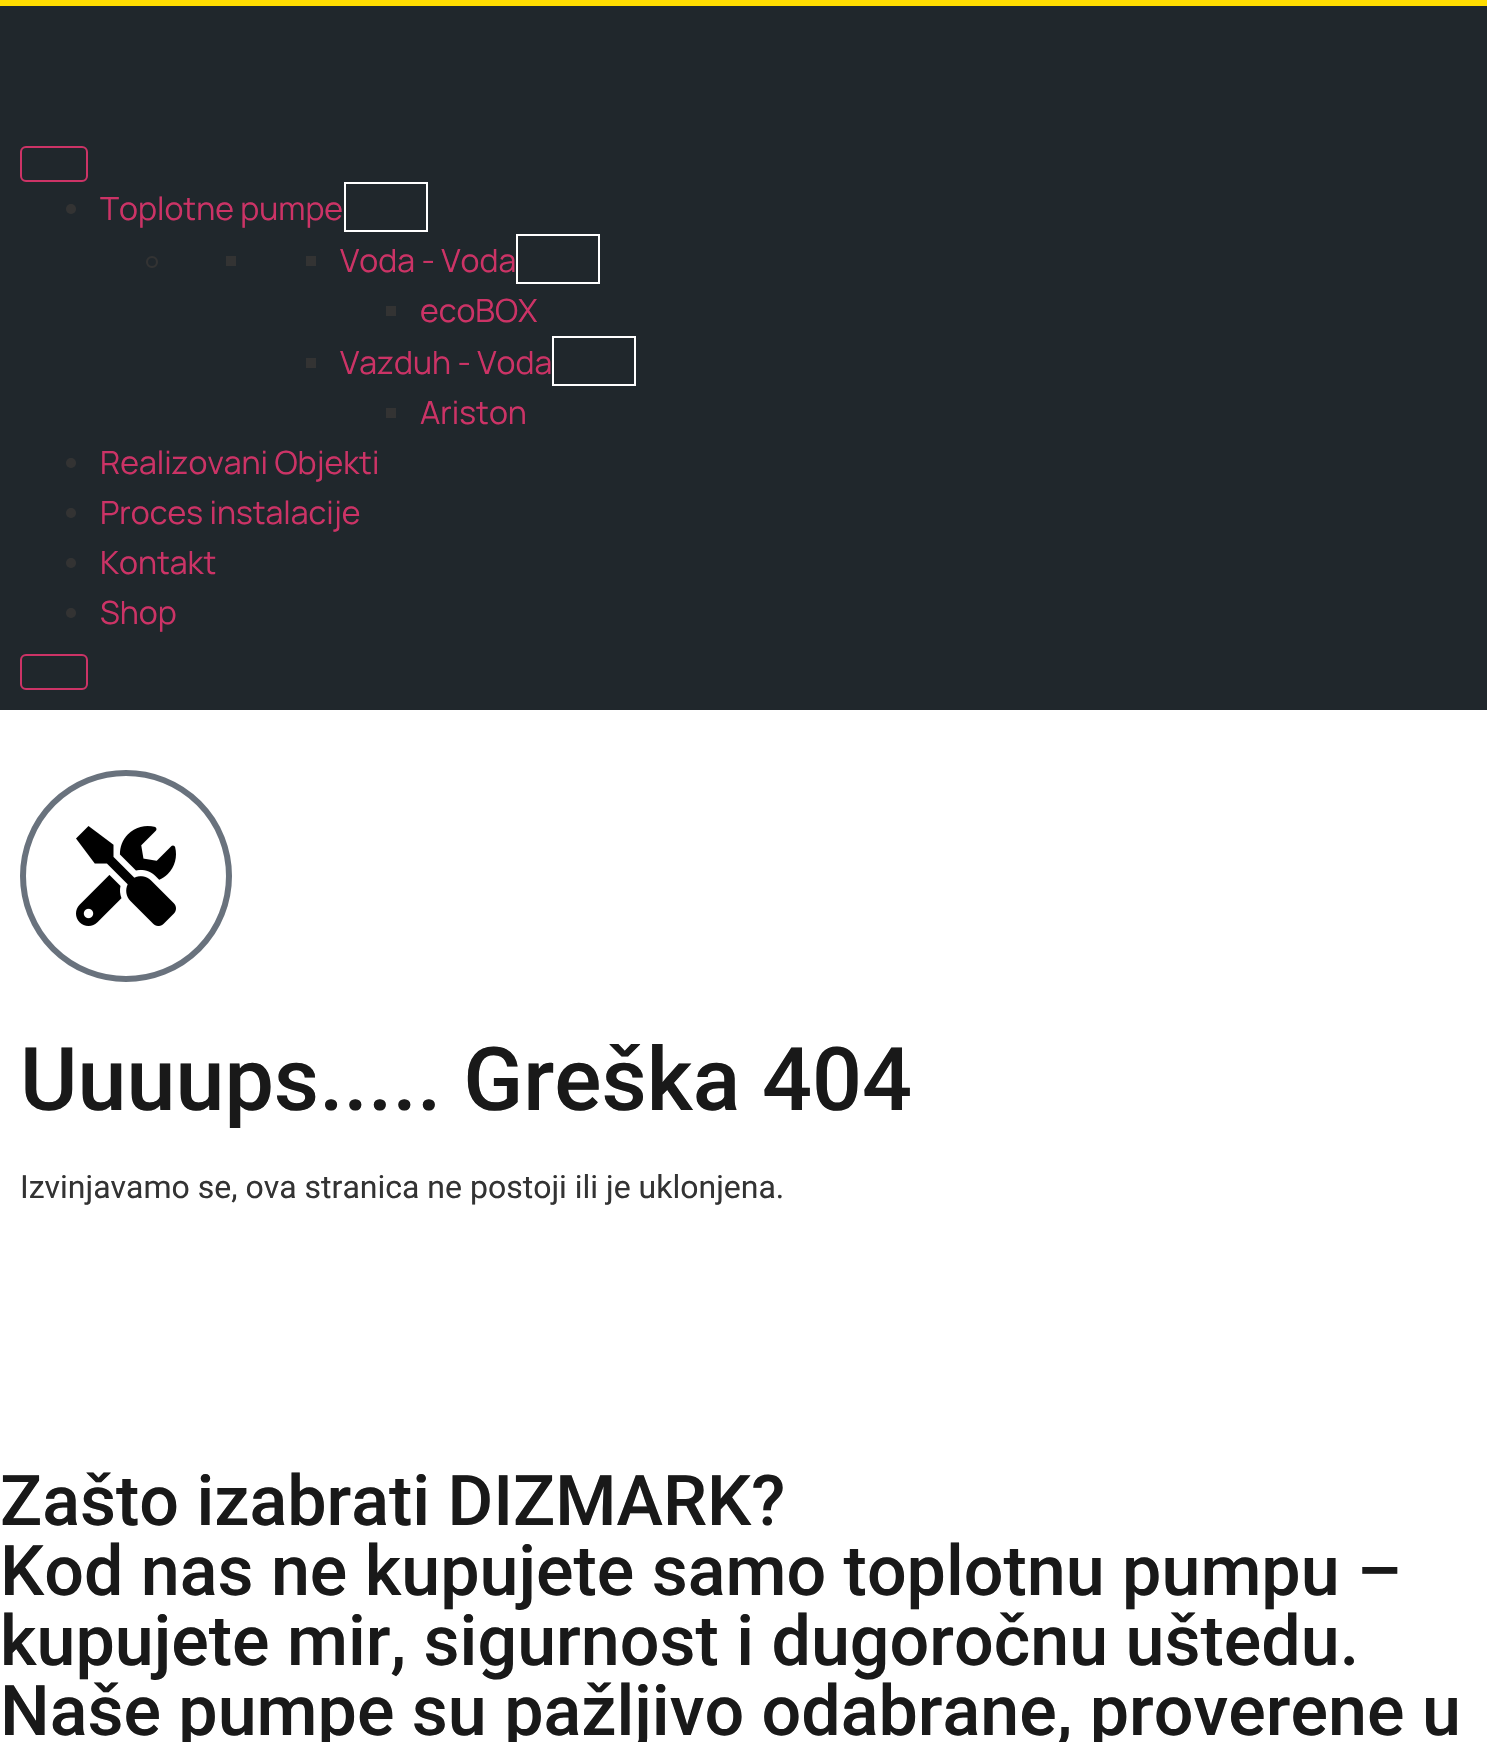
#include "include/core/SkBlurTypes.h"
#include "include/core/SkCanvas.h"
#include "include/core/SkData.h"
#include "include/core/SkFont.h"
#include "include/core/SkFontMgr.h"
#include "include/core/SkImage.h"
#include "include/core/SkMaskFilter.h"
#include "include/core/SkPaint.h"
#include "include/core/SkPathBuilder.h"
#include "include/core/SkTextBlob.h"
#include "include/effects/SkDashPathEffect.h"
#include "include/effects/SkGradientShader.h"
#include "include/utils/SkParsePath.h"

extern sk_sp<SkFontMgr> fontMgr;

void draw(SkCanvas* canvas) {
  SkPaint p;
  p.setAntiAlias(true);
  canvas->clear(SK_ColorWHITE);
  p.setColor(SkColorSetRGB(32, 39, 44));
  canvas->drawRect(SkRect::MakeLTRB(0, 6, 1487, 710), p);
  p.setColor(SkColorSetRGB(255, 221, 0));
  canvas->drawRect(SkRect::MakeLTRB(0, 0, 1487, 6), p);
  p.setStyle(SkPaint::kStroke_Style);
  p.setStrokeWidth(2);
  p.setColor(SkColorSetRGB(204, 51, 102));
  canvas->drawRoundRect(SkRect::MakeLTRB(21, 147, 87, 181), 5, 5, p);
  p.setStyle(SkPaint::kFill_Style);
  p.setColor(SkColorSetRGB(51, 51, 51));
  canvas->drawCircle(71, 209, 5, p);
  p.setStyle(SkPaint::kStroke_Style);
  p.setColor(SK_ColorWHITE);
  canvas->drawRect(SkRect::MakeLTRB(345, 183, 427, 231), p);
  p.setColor(SkColorSetRGB(51, 51, 51));
  canvas->drawCircle(152, 262, 5, p);
  p.setStyle(SkPaint::kFill_Style);
  canvas->drawRect(SkRect::MakeLTRB(226, 256, 236, 266), p);
  canvas->drawRect(SkRect::MakeLTRB(306, 256, 316, 266), p);
  p.setStyle(SkPaint::kStroke_Style);
  p.setColor(SK_ColorWHITE);
  canvas->drawRect(SkRect::MakeLTRB(517, 235, 599, 283), p);
  p.setStyle(SkPaint::kFill_Style);
  p.setColor(SkColorSetRGB(51, 51, 51));
  canvas->drawRect(SkRect::MakeLTRB(386, 306, 396, 316), p);
  canvas->drawRect(SkRect::MakeLTRB(306, 358, 316, 368), p);
  p.setStyle(SkPaint::kStroke_Style);
  p.setColor(SK_ColorWHITE);
  canvas->drawRect(SkRect::MakeLTRB(553, 337, 635, 385), p);
  p.setStyle(SkPaint::kFill_Style);
  p.setColor(SkColorSetRGB(51, 51, 51));
  canvas->drawRect(SkRect::MakeLTRB(386, 408, 396, 418), p);
  canvas->drawCircle(71, 463, 5, p);
  canvas->drawCircle(71, 513, 5, p);
  canvas->drawCircle(71, 563, 5, p);
  canvas->drawCircle(71, 613, 5, p);
  p.setStyle(SkPaint::kStroke_Style);
  p.setColor(SkColorSetRGB(204, 51, 102));
  canvas->drawRoundRect(SkRect::MakeLTRB(21, 655, 87, 689), 5, 5, p);
  p.setStrokeWidth(6);
  p.setColor(SkColorSetRGB(105, 114, 125));
  canvas->drawCircle(126, 876, 103, p);
  canvas->drawImageRect(SkImages::DeferredFromEncodedData(SkData::MakeFromFileName("images/1.png")), SkRect::MakeLTRB(76, 826, 176, 926), SkSamplingOptions());
  SkFont font1(fontMgr->matchFamilyStyle("Manrope", SkFontStyle::Normal()), 32);
  font1.setSubpixel(true);
  p.setStyle(SkPaint::kFill_Style);
  p.setColor(SkColorSetRGB(204, 51, 102));
  canvas->drawString("Toplotne pumpe", 100, 220, font1, p);
  canvas->drawString("Voda - Voda", 340, 272, font1, p);
  canvas->drawString("ecoBOX", 420, 322, font1, p);
  canvas->drawString("Vazduh - Voda", 340, 374, font1, p);
  canvas->drawString("Ariston", 420, 424, font1, p);
  canvas->drawString("Realizovani Objekti", 100, 474, font1, p);
  canvas->drawString("Proces instalacije", 100, 524, font1, p);
  canvas->drawString("Kontakt", 100, 574, font1, p);
  canvas->drawString("Shop", 100, 624, font1, p);
  SkFont font2(fontMgr->matchFamilyStyle("Roboto", SkFontStyle(500, SkFontStyle::kNormal_Width, SkFontStyle::kUpright_Slant)), 88);
  font2.setSubpixel(true);
  p.setColor(SkColorSetRGB(25, 25, 25));
  canvas->drawString("Uuuups..... Greška 404", 20, 1110, font2, p);
  SkFont font3(fontMgr->matchFamilyStyle("Roboto", SkFontStyle::Normal()), 32);
  font3.setSubpixel(true);
  p.setColor(SkColorSetRGB(51, 51, 51));
  canvas->drawString("Izvinjavamo se, ova stranica ne postoji ili je uklonjena.", 20, 1198, font3, p);
  SkFont font4(fontMgr->matchFamilyStyle("Roboto", SkFontStyle(500, SkFontStyle::kNormal_Width, SkFontStyle::kUpright_Slant)), 70);
  font4.setSubpixel(true);
  p.setColor(SkColorSetRGB(25, 25, 25));
  canvas->drawString("Zašto izabrati DIZMARK?", 0, 1525, font4, p);
  canvas->drawString("Kod nas ne kupujete samo toplotnu pumpu –", 0, 1595, font4, p);
  canvas->drawString("kupujete mir, sigurnost i dugoročnu uštedu.", 0, 1665, font4, p);
  canvas->drawString("Naše pumpe su pažljivo odabrane, proverene u", 0, 1735, font4, p);
}
